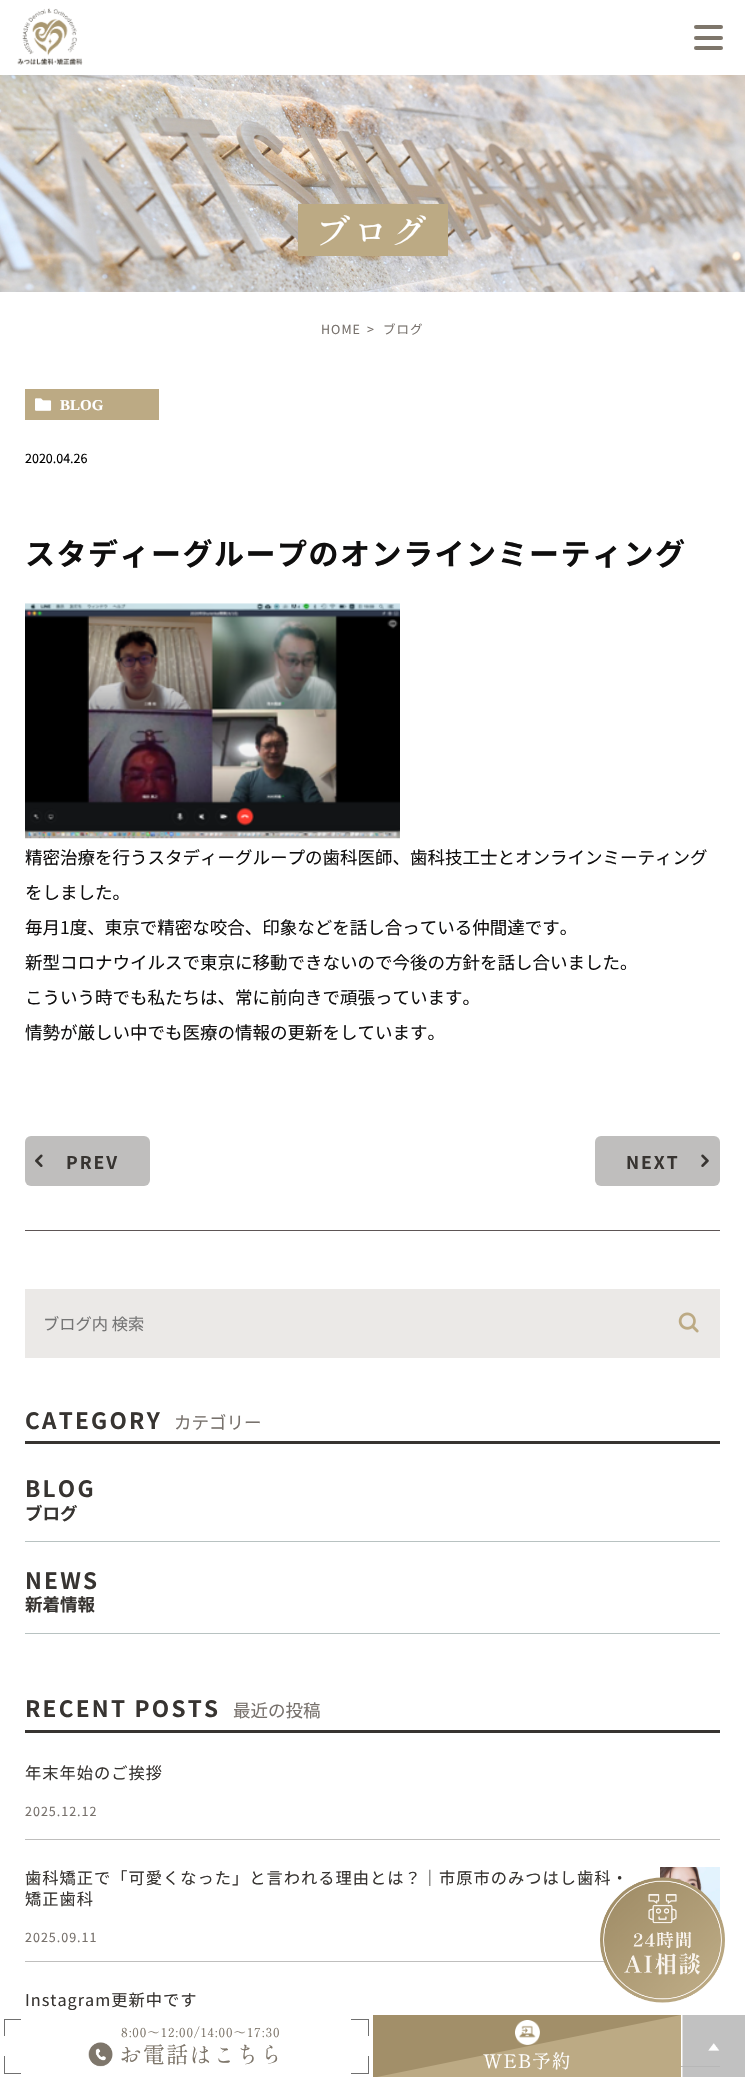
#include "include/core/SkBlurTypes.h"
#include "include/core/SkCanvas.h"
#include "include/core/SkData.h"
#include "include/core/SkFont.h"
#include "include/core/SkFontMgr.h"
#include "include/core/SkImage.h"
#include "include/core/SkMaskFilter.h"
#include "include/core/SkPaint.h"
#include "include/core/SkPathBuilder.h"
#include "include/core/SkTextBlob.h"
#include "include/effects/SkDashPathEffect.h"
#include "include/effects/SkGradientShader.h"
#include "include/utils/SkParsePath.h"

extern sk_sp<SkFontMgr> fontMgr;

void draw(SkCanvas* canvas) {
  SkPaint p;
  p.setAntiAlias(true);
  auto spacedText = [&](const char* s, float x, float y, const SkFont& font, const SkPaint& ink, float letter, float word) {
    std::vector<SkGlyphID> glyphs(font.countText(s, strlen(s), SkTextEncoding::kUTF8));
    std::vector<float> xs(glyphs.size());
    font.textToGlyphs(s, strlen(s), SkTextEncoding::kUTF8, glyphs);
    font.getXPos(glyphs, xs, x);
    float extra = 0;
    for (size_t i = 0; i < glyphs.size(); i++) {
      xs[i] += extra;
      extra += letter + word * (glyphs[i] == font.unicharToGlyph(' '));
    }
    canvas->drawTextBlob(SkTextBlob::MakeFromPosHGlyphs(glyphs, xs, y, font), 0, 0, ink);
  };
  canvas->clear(SK_ColorWHITE);
  canvas->drawImageRect(SkImages::DeferredFromEncodedData(SkData::MakeFromFileName("images/1.png")), SkRect::MakeLTRB(17, 8, 83, 65), SkSamplingOptions());
  p.setColor(SkColorSetRGB(126, 118, 107));
  canvas->drawRoundRect(SkRect::MakeLTRB(694, 25, 723, 29), 2, 2, p);
  canvas->drawRoundRect(SkRect::MakeLTRB(694, 36, 723, 40), 2, 2, p);
  canvas->drawRoundRect(SkRect::MakeLTRB(694, 46, 723, 50), 2, 2, p);
  canvas->drawImageRect(SkImages::DeferredFromEncodedData(SkData::MakeFromFileName("images/2.png")), SkRect::MakeLTRB(0, 75, 745, 292), SkSamplingOptions());
  p.setColor(SkColorSetRGB(188, 170, 132));
  canvas->drawRect(SkRect::MakeLTRB(298, 204, 448, 256), p);
  canvas->drawRect(SkRect::MakeLTRB(25, 389, 159, 420), p);
  canvas->drawImageRect(SkImages::DeferredFromEncodedData(SkData::MakeFromFileName("images/3.png")), SkRect::MakeLTRB(35, 398, 52, 411), SkSamplingOptions());
  canvas->drawImageRect(SkImages::DeferredFromEncodedData(SkData::MakeFromFileName("images/4.png")), SkRect::MakeLTRB(25, 603, 400, 839), SkSamplingOptions());
  p.setColor(SkColorSetRGB(191, 190, 189));
  canvas->drawRoundRect(SkRect::MakeLTRB(25, 1136, 150, 1186), 6, 6, p);
  canvas->drawImageRect(SkImages::DeferredFromEncodedData(SkData::MakeFromFileName("images/5.png")), SkRect::MakeLTRB(35, 1154, 43, 1167), SkSamplingOptions());
  canvas->drawRoundRect(SkRect::MakeLTRB(595, 1136, 720, 1186), 6, 6, p);
  canvas->drawImageRect(SkImages::DeferredFromEncodedData(SkData::MakeFromFileName("images/6.png")), SkRect::MakeLTRB(701, 1154, 709, 1167), SkSamplingOptions());
  p.setColor(SkColorSetRGB(93, 85, 85));
  canvas->drawRect(SkRect::MakeLTRB(25, 1230, 720, 1231), p);
  p.setColor(SkColorSetRGB(235, 233, 231));
  canvas->drawRect(SkRect::MakeLTRB(25, 1289, 720, 1358), p);
  canvas->drawImageRect(SkImages::DeferredFromEncodedData(SkData::MakeFromFileName("images/7.png")), SkRect::MakeLTRB(678, 1312, 699, 1333), SkSamplingOptions());
  p.setColor(SkColorSetRGB(55, 52, 49));
  canvas->drawRect(SkRect::MakeLTRB(25, 1441, 720, 1444), p);
  p.setColor(SkColorSetRGB(184, 194, 193));
  canvas->drawRect(SkRect::MakeLTRB(25, 1541, 720, 1542), p);
  canvas->drawRect(SkRect::MakeLTRB(25, 1633, 720, 1634), p);
  p.setColor(SkColorSetRGB(55, 52, 49));
  canvas->drawRect(SkRect::MakeLTRB(25, 1730, 720, 1733), p);
  p.setColor(SkColorSetRGB(191, 190, 189));
  canvas->drawRect(SkRect::MakeLTRB(25, 1839, 720, 1840), p);
  canvas->drawRect(SkRect::MakeLTRB(25, 1961, 604, 1962), p);
  canvas->drawImageRect(SkImages::DeferredFromEncodedData(SkData::MakeFromFileName("images/8.png")), SkRect::MakeLTRB(660, 1867, 720, 1916), SkSamplingOptions());
  canvas->drawRect(SkRect::MakeLTRB(681, 2066, 720, 2067), p);
  p.setColor(SkColorSetRGB(112, 112, 112));
  canvas->drawRect(SkRect::MakeLTRB(4, 2019, 21, 2020), p);
  canvas->drawRect(SkRect::MakeLTRB(4, 2019, 5, 2036), p);
  canvas->drawRect(SkRect::MakeLTRB(4, 2073, 21, 2074), p);
  canvas->drawRect(SkRect::MakeLTRB(4, 2056, 5, 2074), p);
  canvas->drawImageRect(SkImages::DeferredFromEncodedData(SkData::MakeFromFileName("images/10.png")), SkRect::MakeLTRB(88, 2042, 113, 2067), SkSamplingOptions());
  canvas->drawRect(SkRect::MakeLTRB(368, 2056, 369, 2074), p);
  canvas->drawRect(SkRect::MakeLTRB(351, 2073, 369, 2074), p);
  canvas->drawRect(SkRect::MakeLTRB(351, 2019, 369, 2020), p);
  canvas->drawRect(SkRect::MakeLTRB(368, 2019, 369, 2036), p);
  p.setColor(SkColorSetRGB(162, 143, 105));
  canvas->drawRect(SkRect::MakeLTRB(373, 2015, 681, 2077), p);
  p.setColor(SkColorSetRGB(188, 170, 132));
  canvas->drawPath(SkPathBuilder().moveTo(681, 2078).lineTo(372, 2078).lineTo(681, 2015).close().detach(), p);
  canvas->drawImageRect(SkImages::DeferredFromEncodedData(SkData::MakeFromFileName("images/11.png")), SkRect::MakeLTRB(515, 2020, 540, 2045), SkSamplingOptions());
  canvas->drawImageRect(SkImages::DeferredFromEncodedData(SkData::MakeFromFileName("images/12.png")), SkRect::MakeLTRB(682, 2015, 745, 2077), SkSamplingOptions());
  SkFont font1(fontMgr->matchFamilyStyle("Shippori Mincho B1", SkFontStyle(500, SkFontStyle::kNormal_Width, SkFontStyle::kUpright_Slant)), 35);
  font1.setSubpixel(true);
  p.setColor(SK_ColorWHITE);
  spacedText("ブログ", 315, 245, font1, p, 3.5f, 0);
  SkFont font2(fontMgr->matchFamilyStyle("Noto Sans JP", SkFontStyle::Normal()), 12.5f);
  font2.setSubpixel(true);
  p.setColor(SkColorSetRGB(119, 113, 108));
  spacedText("HOME", 321, 334, font2, p, 1, 0);
  spacedText(">", 367, 334, font2, p, 1, 0);
  spacedText("ブログ", 383, 334, font2, p, 1, 0);
  SkFont font3(fontMgr->matchFamilyStyle("Liberation Serif", SkFontStyle::Bold()), 15);
  font3.setSubpixel(true);
  p.setColor(SK_ColorWHITE);
  canvas->drawString("BLOG", 60, 410, font3, p);
  p.setColor(SK_ColorBLACK);
  canvas->drawString("2020.04.26", 25, 463, font2, p);
  SkFont font4(fontMgr->matchFamilyStyle("Noto Sans JP", SkFontStyle::Bold()), 30);
  font4.setSubpixel(true);
  p.setColor(SkColorSetRGB(15, 14, 14));
  spacedText("スタディーグループのオンラインミーティング", 25, 565, font4, p, 1.5f, 0);
  SkFont font5(fontMgr->matchFamilyStyle("Noto Sans JP", SkFontStyle::Normal()), 17.5f);
  font5.setSubpixel(true);
  canvas->drawString("精密治療を行うスタディーグループの歯科医師、歯科技工士とオンラインミーティング", 25, 864, font5, p);
  canvas->drawString("をしました。", 25, 899, font5, p);
  canvas->drawString("毎月1度、東京で精密な咬合、印象などを話し合っている仲間達です。", 25, 934, font5, p);
  canvas->drawString("新型コロナウイルスで東京に移動できないので今後の方針を話し合いました。", 25, 969, font5, p);
  canvas->drawString("こういう時でも私たちは、常に前向きで頑張っています。", 25, 1004, font5, p);
  canvas->drawString("情勢が厳しい中でも医療の情報の更新をしています。", 25, 1039, font5, p);
  SkFont font6(fontMgr->matchFamilyStyle("Noto Sans JP", SkFontStyle::Bold()), 17.5f);
  font6.setSubpixel(true);
  p.setColor(SkColorSetRGB(55, 52, 49));
  spacedText("PREV", 66, 1169, font6, p, 2, 0);
  spacedText("NEXT", 626, 1169, font6, p, 2, 0);
  SkFont font7(fontMgr->matchFamilyStyle("Noto Sans JP", SkFontStyle::Normal()), 16.25f);
  font7.setSubpixel(true);
  p.setColor(SkColorSetRGB(117, 117, 117));
  canvas->drawString("ブログ内 検索", 43, 1330, font7, p);
  SkFont font8(fontMgr->matchFamilyStyle("Noto Sans JP", SkFontStyle::Bold()), 22.5f);
  font8.setSubpixel(true);
  p.setColor(SkColorSetRGB(55, 52, 49));
  spacedText("CATEGORY", 25, 1429, font8, p, 2.25f, 0);
  p.setColor(SkColorSetRGB(119, 113, 108));
  canvas->drawString("カテゴリー", 174, 1429, font5, p);
  p.setColor(SkColorSetRGB(55, 52, 49));
  spacedText("BLOG", 25, 1497, font8, p, 2.25f, 0);
  canvas->drawString("ブログ", 25, 1520, font6, p);
  spacedText("NEWS", 25, 1589, font8, p, 2.25f, 0);
  canvas->drawString("新着情報", 25, 1611, font6, p);
  spacedText("RECENT POSTS", 25, 1717, font8, p, 2.25f, 0);
  p.setColor(SkColorSetRGB(119, 113, 108));
  canvas->drawString("最近の投稿", 233, 1717, font5, p);
  p.setColor(SkColorSetRGB(55, 52, 49));
  spacedText("年末年始のご挨拶", 25, 1779, font7, p, 1, 0);
  p.setColor(SkColorSetRGB(119, 113, 108));
  spacedText("2025.12.12", 25, 1816, font2, p, 1, 0);
  p.setColor(SkColorSetRGB(55, 52, 49));
  spacedText("歯科矯正で「可愛くなった」と言われる理由とは？｜市原市のみつはし歯科・", 25, 1884, font7, p, 1, 0);
  spacedText("矯正歯科", 25, 1905, font7, p, 1, 0);
  p.setColor(SkColorSetRGB(119, 113, 108));
  spacedText("2025.09.11", 25, 1942, font2, p, 1, 0);
  p.setColor(SkColorSetRGB(55, 52, 49));
  spacedText("Instagram更新中です", 25, 2006, font7, p, 1, 0);
  canvas->drawImageRect(SkImages::DeferredFromEncodedData(SkData::MakeFromFileName("images/9.png")), SkRect::MakeLTRB(600, 1877, 725, 2003), SkSamplingOptions());
  SkFont font9(fontMgr->matchFamilyStyle("Shippori Mincho B1", SkFontStyle::Normal()), 12.5f);
  font9.setSubpixel(true);
  p.setColor(SkColorSetRGB(126, 118, 107));
  spacedText("8:00～12:00/14:00～17:30", 121, 2037, font9, p, 1, 0);
  SkFont font10(fontMgr->matchFamilyStyle("Shippori Mincho B1", SkFontStyle::Normal()), 22.5f);
  font10.setSubpixel(true);
  spacedText("お電話はこちら", 119, 2063, font10, p, 1, 0);
  SkFont font11(fontMgr->matchFamilyStyle("Shippori Mincho B1", SkFontStyle::Normal()), 18.75f);
  font11.setSubpixel(true);
  p.setColor(SK_ColorWHITE);
  spacedText("WEB予約", 483, 2068, font11, p, 1, 0);
}
